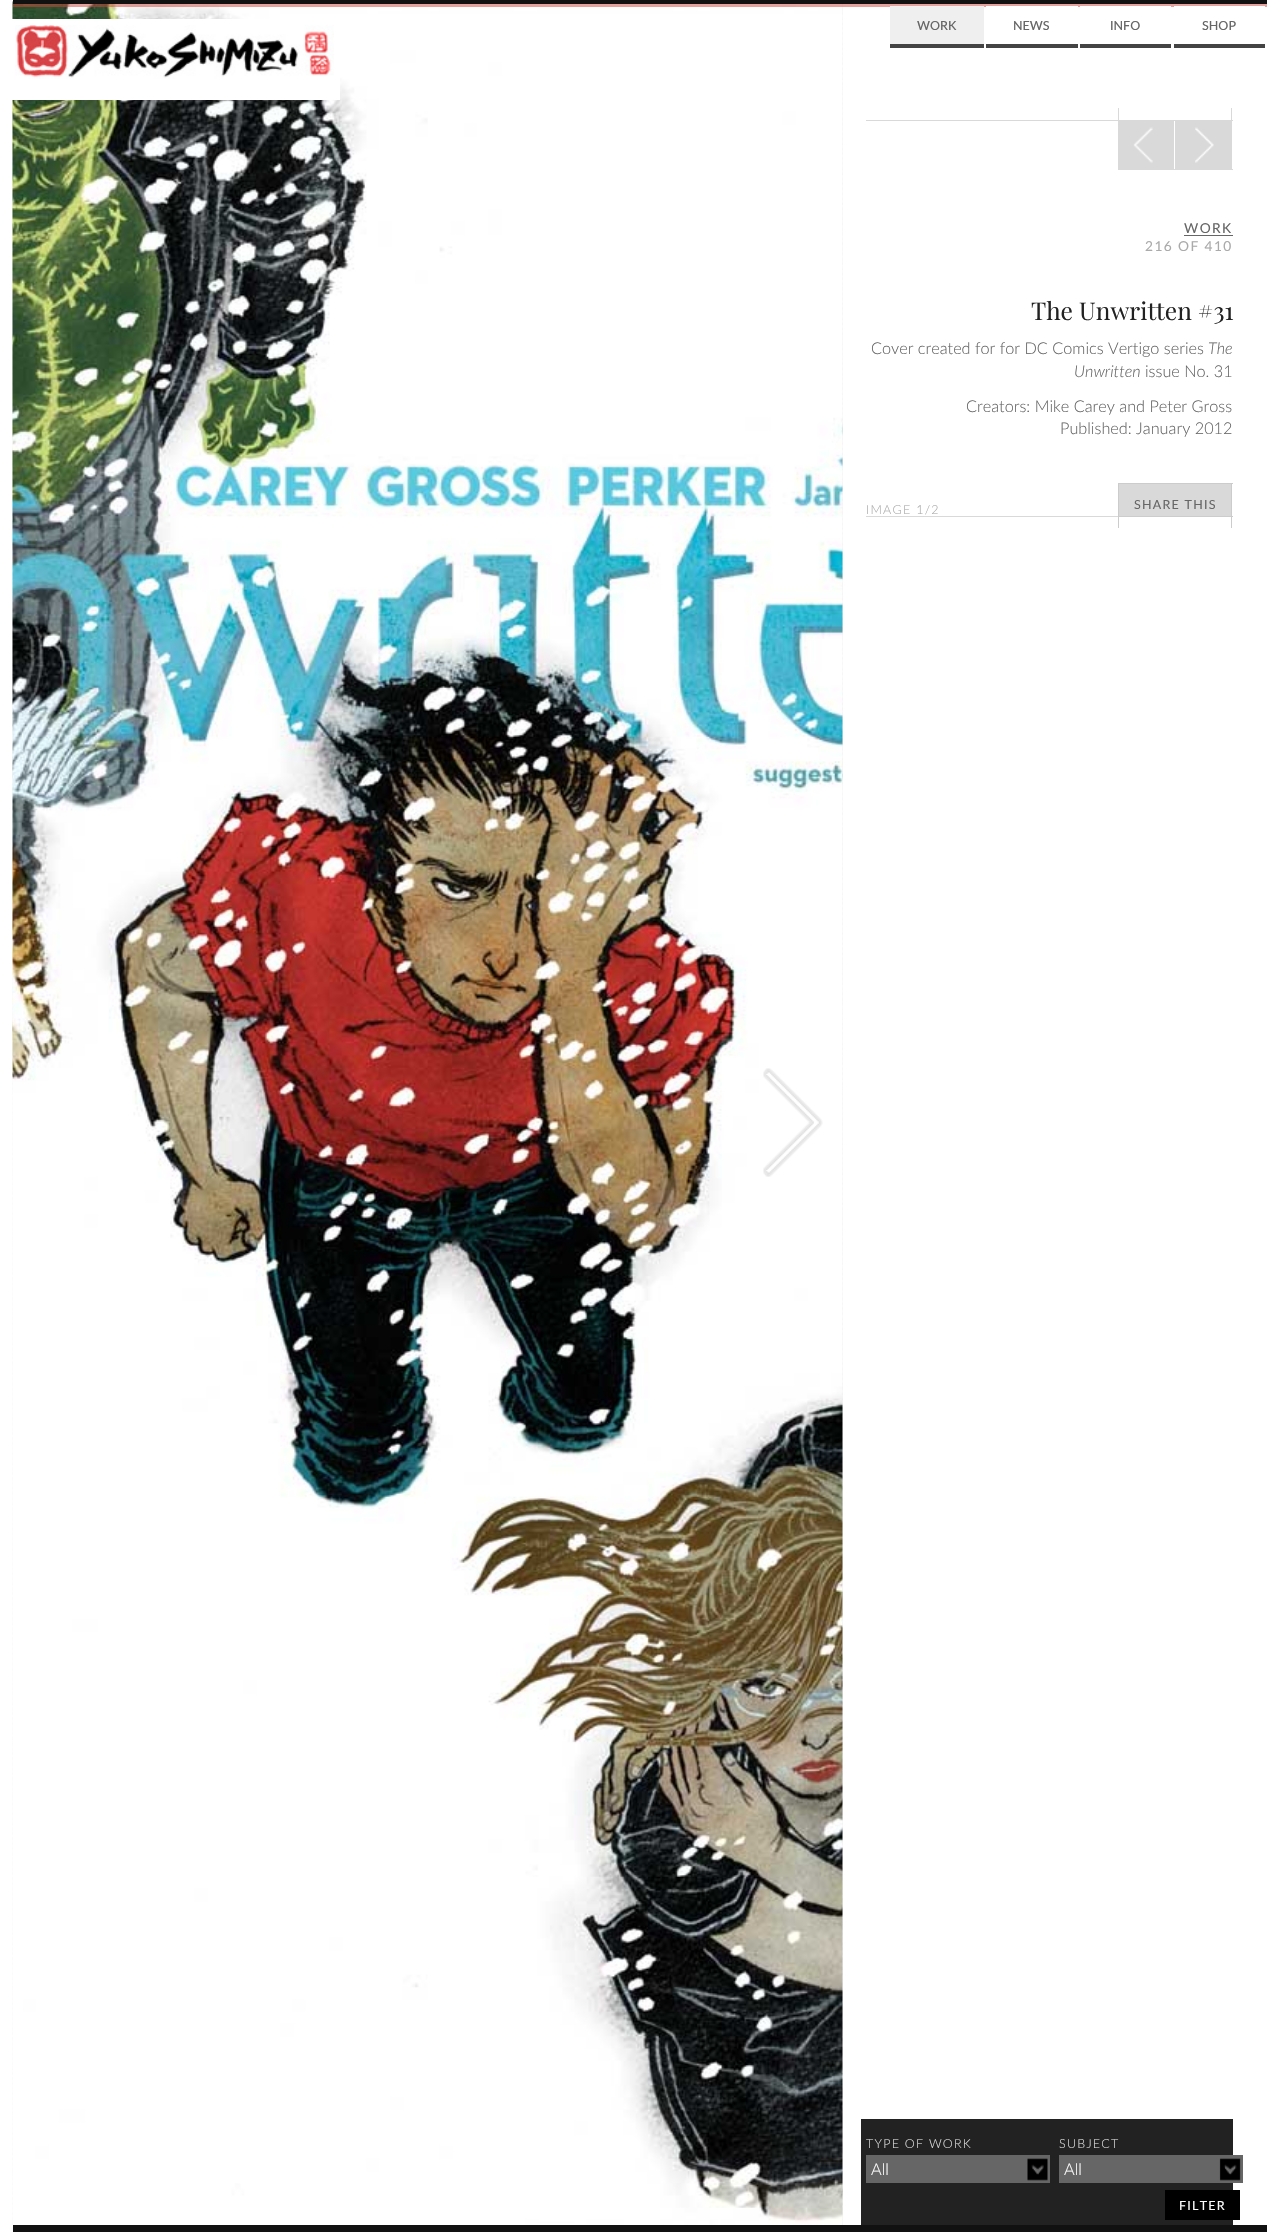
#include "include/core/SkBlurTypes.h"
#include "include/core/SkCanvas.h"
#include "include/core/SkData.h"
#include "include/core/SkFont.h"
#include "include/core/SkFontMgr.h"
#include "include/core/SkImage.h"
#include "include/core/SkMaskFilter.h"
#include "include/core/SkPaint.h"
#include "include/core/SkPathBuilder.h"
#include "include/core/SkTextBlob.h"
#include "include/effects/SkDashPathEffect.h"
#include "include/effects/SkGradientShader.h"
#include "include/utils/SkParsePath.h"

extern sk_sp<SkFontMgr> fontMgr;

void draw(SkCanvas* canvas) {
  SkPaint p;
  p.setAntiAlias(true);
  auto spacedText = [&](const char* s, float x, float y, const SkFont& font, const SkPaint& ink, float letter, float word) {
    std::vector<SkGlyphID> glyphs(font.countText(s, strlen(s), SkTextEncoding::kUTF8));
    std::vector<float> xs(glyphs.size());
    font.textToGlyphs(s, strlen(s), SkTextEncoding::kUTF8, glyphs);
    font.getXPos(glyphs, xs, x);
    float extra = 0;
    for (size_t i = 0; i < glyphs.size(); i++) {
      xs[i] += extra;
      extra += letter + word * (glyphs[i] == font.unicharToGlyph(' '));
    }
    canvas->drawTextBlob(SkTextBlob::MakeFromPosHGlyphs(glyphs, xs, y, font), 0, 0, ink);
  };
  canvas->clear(SK_ColorWHITE);
  canvas->drawImageRect(SkImages::DeferredFromEncodedData(SkData::MakeFromFileName("images/2.png")), SkRect::MakeLTRB(12, 1, 843, 2232), SkSamplingOptions());
  canvas->drawImageRect(SkImages::DeferredFromEncodedData(SkData::MakeFromFileName("images/3.png")), SkRect::MakeLTRB(12, 1, 843, 2232), SkSamplingOptions());
  p.setColor(SkColorSetRGB(17, 17, 17));
  canvas->drawRect(SkRect::MakeLTRB(13, 0, 1267, 4), p);
  p.setColor(SkColorSetARGB(128, 204, 67, 57));
  canvas->drawRect(SkRect::MakeLTRB(13, 4, 1267, 7), p);
  p.setColor(SK_ColorWHITE);
  canvas->drawRect(SkRect::MakeLTRB(12, 19, 340, 100), p);
  canvas->drawImageRect(SkImages::DeferredFromEncodedData(SkData::MakeFromFileName("images/1.png")), SkRect::MakeLTRB(15, 25, 334, 79), SkSamplingOptions());
  p.setColor(SkColorSetRGB(239, 239, 239));
  canvas->drawRect(SkRect::MakeLTRB(890, 6, 984, 44), p);
  p.setColor(SkColorSetRGB(68, 68, 68));
  canvas->drawRect(SkRect::MakeLTRB(890, 44, 984, 48), p);
  canvas->drawRect(SkRect::MakeLTRB(986, 44, 1078, 48), p);
  p.setColor(SK_ColorWHITE);
  canvas->drawRect(SkRect::MakeLTRB(986, 6, 1078, 7), p);
  p.setColor(SkColorSetRGB(68, 68, 68));
  canvas->drawRect(SkRect::MakeLTRB(1080, 44, 1171, 48), p);
  p.setColor(SK_ColorWHITE);
  canvas->drawRect(SkRect::MakeLTRB(1080, 6, 1171, 7), p);
  p.setColor(SkColorSetRGB(68, 68, 68));
  canvas->drawRect(SkRect::MakeLTRB(1174, 44, 1265, 48), p);
  p.setColor(SK_ColorWHITE);
  canvas->drawRect(SkRect::MakeLTRB(1174, 6, 1265, 7), p);
  canvas->drawImageRect(SkImages::DeferredFromEncodedData(SkData::MakeFromFileName("images/4.png")), SkRect::MakeLTRB(763, 1068, 823, 1177), SkSamplingOptions());
  p.setColor(SkColorSetRGB(217, 217, 217));
  canvas->drawRect(SkRect::MakeLTRB(866, 120, 1118, 121), p);
  canvas->drawRect(SkRect::MakeLTRB(1231, 108, 1232, 170), p);
  canvas->drawRect(SkRect::MakeLTRB(1118, 120, 1233, 121), p);
  canvas->drawRect(SkRect::MakeLTRB(1118, 108, 1119, 121), p);
  canvas->drawRect(SkRect::MakeLTRB(1118, 169, 1233, 170), p);
  canvas->drawRect(SkRect::MakeLTRB(1118, 121, 1119, 170), p);
  canvas->drawRect(SkRect::MakeLTRB(1119, 121, 1174, 169), p);
  canvas->drawImageRect(SkImages::DeferredFromEncodedData(SkData::MakeFromFileName("images/5.png")), SkRect::MakeLTRB(1133, 127, 1153, 163), SkSamplingOptions());
  canvas->drawRect(SkRect::MakeLTRB(1175, 121, 1231, 169), p);
  canvas->drawImageRect(SkImages::DeferredFromEncodedData(SkData::MakeFromFileName("images/6.png")), SkRect::MakeLTRB(1195, 127, 1214, 163), SkSamplingOptions());
  p.setColor(SkColorSetRGB(102, 102, 102));
  canvas->drawRect(SkRect::MakeLTRB(1184, 235, 1233, 236), p);
  p.setColor(SkColorSetRGB(204, 204, 204));
  canvas->drawRect(SkRect::MakeLTRB(1118, 483, 1233, 484), p);
  canvas->drawRect(SkRect::MakeLTRB(1231, 483, 1232, 516), p);
  canvas->drawRect(SkRect::MakeLTRB(1118, 483, 1119, 516), p);
  p.setColor(SkColorSetRGB(217, 217, 217));
  canvas->drawRect(SkRect::MakeLTRB(1119, 484, 1231, 516), p);
  canvas->drawRect(SkRect::MakeLTRB(866, 516, 1118, 517), p);
  p.setColor(SkColorSetRGB(204, 204, 204));
  canvas->drawRect(SkRect::MakeLTRB(1118, 516, 1233, 517), p);
  canvas->drawRect(SkRect::MakeLTRB(1231, 516, 1232, 530), p);
  canvas->drawRect(SkRect::MakeLTRB(1118, 516, 1119, 530), p);
  p.setColor(SK_ColorWHITE);
  canvas->drawRect(SkRect::MakeLTRB(1118, 528, 1232, 530), p);
  p.setColor(SkColorSetRGB(34, 34, 34));
  canvas->drawRect(SkRect::MakeLTRB(861, 2119, 1233, 2225), p);
  p.setColor(SkColorSetRGB(102, 102, 102));
  canvas->drawRect(SkRect::MakeLTRB(866, 2155, 1050, 2183), p);
  canvas->drawImageRect(SkImages::DeferredFromEncodedData(SkData::MakeFromFileName("images/7.png")), SkRect::MakeLTRB(1027, 2158, 1048, 2181), SkSamplingOptions());
  canvas->drawRect(SkRect::MakeLTRB(1059, 2155, 1243, 2183), p);
  canvas->drawImageRect(SkImages::DeferredFromEncodedData(SkData::MakeFromFileName("images/8.png")), SkRect::MakeLTRB(1219, 2158, 1241, 2181), SkSamplingOptions());
  p.setColor(SK_ColorBLACK);
  canvas->drawRect(SkRect::MakeLTRB(1165, 2190, 1240, 2220), p);
  p.setColor(SkColorSetRGB(17, 17, 17));
  canvas->drawRect(SkRect::MakeLTRB(13, 2225, 1267, 2232), p);
  SkFont font1(fontMgr->matchFamilyStyle("Lato", SkFontStyle(500, SkFontStyle::kNormal_Width, SkFontStyle::kUpright_Slant)), 12.5f);
  font1.setSubpixel(true);
  p.setColor(SkColorSetRGB(102, 102, 102));
  canvas->drawString("WORK", 917, 30, font1, p);
  canvas->drawString("NEWS", 1013, 30, font1, p);
  canvas->drawString("INFO", 1110, 30, font1, p);
  canvas->drawString("SHOP", 1202, 30, font1, p);
  SkFont font2(fontMgr->matchFamilyStyle("Lato", SkFontStyle::Normal()), 13.75f);
  font2.setSubpixel(true);
  spacedText("WORK", 1184, 233, font2, p, 1.4f, 0);
  p.setColor(SkColorSetRGB(170, 170, 170));
  spacedText("216 OF 410", 1145, 251, font2, p, 1.4f, 0);
  SkFont font3(fontMgr->matchFamilyStyle("Playfair Display", SkFontStyle::Normal()), 24.5f);
  font3.setSubpixel(true);
  p.setColor(SkColorSetRGB(34, 34, 34));
  canvas->drawString("The Unwritten #31", 1031, 320, font3, p);
  SkFont font4(fontMgr->matchFamilyStyle("Lato", SkFontStyle(300, SkFontStyle::kNormal_Width, SkFontStyle::kUpright_Slant)), 16.25f);
  font4.setSubpixel(true);
  p.setColor(SkColorSetRGB(102, 102, 102));
  canvas->drawString("Cover created for for DC Comics Vertigo series", 871, 354, font4, p);
  SkFont font5(fontMgr->matchFamilyStyle("Lato", SkFontStyle(300, SkFontStyle::kNormal_Width, SkFontStyle::kItalic_Slant)), 16.25f);
  font5.setSubpixel(true);
  canvas->drawString("The", 1208, 354, font5, p);
  canvas->drawString("Unwritten", 1074, 377, font5, p);
  canvas->drawString("issue No. 31", 1145, 377, font4, p);
  canvas->drawString("Creators: Mike Carey and Peter Gross", 966, 412, font4, p);
  canvas->drawString("Published: January 2012", 1060, 434, font4, p);
  SkFont font6(fontMgr->matchFamilyStyle("Lato", SkFontStyle(300, SkFontStyle::kNormal_Width, SkFontStyle::kUpright_Slant)), 12.5f);
  font6.setSubpixel(true);
  p.setColor(SkColorSetRGB(170, 170, 170));
  spacedText("IMAGE 1/2", 866, 514, font6, p, 1.25f, 0);
  SkFont font7(fontMgr->matchFamilyStyle("Lato", SkFontStyle::Normal()), 12.5f);
  font7.setSubpixel(true);
  p.setColor(SkColorSetRGB(102, 102, 102));
  spacedText("SHARE THIS", 1134, 509, font7, p, 1.25f, 0);
  p.setColor(SkColorSetRGB(221, 221, 221));
  spacedText("TYPE OF WORK", 866, 2148, font6, p, 1.25f, 0);
  p.setColor(SkColorSetRGB(253, 253, 253));
  canvas->drawString("All", 871, 2175, font4, p);
  p.setColor(SkColorSetRGB(221, 221, 221));
  spacedText("SUBJECT", 1059, 2148, font6, p, 1.25f, 0);
  p.setColor(SkColorSetRGB(253, 253, 253));
  canvas->drawString("All", 1064, 2175, font4, p);
  spacedText("FILTER", 1179, 2210, font7, p, 1.25f, 0);
}
